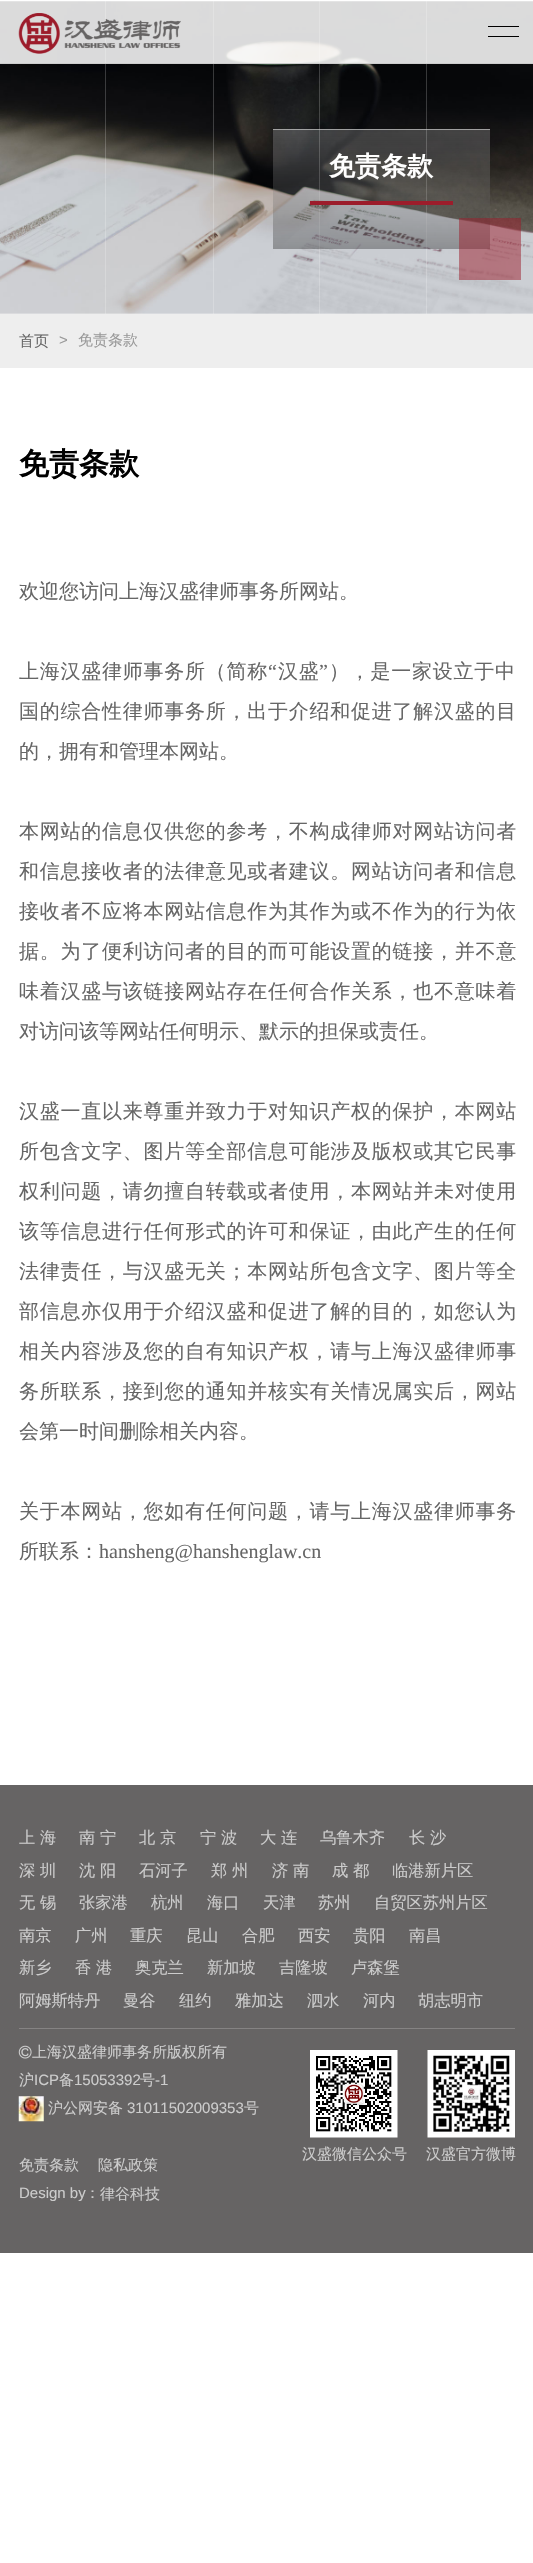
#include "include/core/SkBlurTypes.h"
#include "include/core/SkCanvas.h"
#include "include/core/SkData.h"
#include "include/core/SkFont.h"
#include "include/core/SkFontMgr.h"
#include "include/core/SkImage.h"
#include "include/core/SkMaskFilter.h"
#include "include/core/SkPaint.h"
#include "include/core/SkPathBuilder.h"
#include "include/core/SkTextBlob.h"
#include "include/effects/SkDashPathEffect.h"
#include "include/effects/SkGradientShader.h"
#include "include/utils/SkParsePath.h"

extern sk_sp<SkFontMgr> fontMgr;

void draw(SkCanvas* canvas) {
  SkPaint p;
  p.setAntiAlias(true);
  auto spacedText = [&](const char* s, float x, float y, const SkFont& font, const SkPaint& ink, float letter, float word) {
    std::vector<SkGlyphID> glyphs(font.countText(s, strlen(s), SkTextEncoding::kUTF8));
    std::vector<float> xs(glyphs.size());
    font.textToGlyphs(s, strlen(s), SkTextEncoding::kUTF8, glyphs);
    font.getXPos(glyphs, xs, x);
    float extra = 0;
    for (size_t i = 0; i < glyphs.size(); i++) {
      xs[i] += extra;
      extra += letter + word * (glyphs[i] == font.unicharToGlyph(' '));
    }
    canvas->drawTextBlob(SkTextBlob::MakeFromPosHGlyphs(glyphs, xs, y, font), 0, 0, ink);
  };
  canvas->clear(SK_ColorWHITE);
  canvas->drawImageRect(SkImages::DeferredFromEncodedData(SkData::MakeFromFileName("images/2.png")), SkRect::MakeLTRB(0, 1, 533, 314), SkSamplingOptions());
  p.setColor(SkColorSetARGB(51, 255, 255, 255));
  canvas->drawRect(SkRect::MakeLTRB(105, 1, 106, 314), p);
  canvas->drawRect(SkRect::MakeLTRB(213, 1, 214, 314), p);
  canvas->drawRect(SkRect::MakeLTRB(319, 1, 320, 314), p);
  canvas->drawRect(SkRect::MakeLTRB(426, 1, 427, 314), p);
  p.setColor(SkColorSetARGB(217, 255, 255, 255));
  canvas->drawRect(SkRect::MakeLTRB(0, 1, 533, 63), p);
  p.setColor(SkColorSetRGB(204, 204, 204));
  canvas->drawRect(SkRect::MakeLTRB(0, 63, 533, 64), p);
  canvas->drawImageRect(SkImages::DeferredFromEncodedData(SkData::MakeFromFileName("images/1.png")), SkRect::MakeLTRB(18, 13, 181, 54), SkSamplingOptions());
  p.setColor(SK_ColorBLACK);
  canvas->drawRect(SkRect::MakeLTRB(488, 26, 519, 27), p);
  canvas->drawRect(SkRect::MakeLTRB(488, 36, 519, 37), p);
  {
    const SkColor colors[] = {SkColorSetARGB(51, 255, 255, 255), SkColorSetARGB(77, 0, 0, 0)};
    const float stops[] = {0, 1};
    const SkPoint ends[] = {{381, 11}, {381, 130}};
    p.setShader(SkGradientShader::MakeLinear(ends, colors, stops, 2, SkTileMode::kClamp));
    p.setAlpha(255);
  }
  canvas->drawRect(SkRect::MakeLTRB(273, 129, 490, 130), p);
  {
    const SkColor colors[] = {SkColorSetARGB(51, 255, 255, 255), SkColorSetARGB(77, 0, 0, 0)};
    const float stops[] = {0, 1};
    const SkPoint ends[] = {{381, 130}, {381, 249}};
    p.setShader(SkGradientShader::MakeLinear(ends, colors, stops, 2, SkTileMode::kClamp));
    p.setAlpha(255);
  }
  canvas->drawRect(SkRect::MakeLTRB(273, 130, 490, 249), p);
  p.setShader(nullptr);
  p.setColor(SkColorSetARGB(153, 255, 255, 255));
  canvas->drawRect(SkRect::MakeLTRB(273, 129, 490, 130), p);
  p.setColor(SkColorSetRGB(156, 29, 43));
  canvas->drawRect(SkRect::MakeLTRB(310, 201, 453, 205), p);
  p.setColor(SkColorSetARGB(128, 156, 29, 43));
  canvas->drawRect(SkRect::MakeLTRB(459, 218, 521, 280), p);
  p.setColor(SkColorSetRGB(238, 238, 238));
  canvas->drawRect(SkRect::MakeLTRB(0, 314, 533, 368), p);
  p.setColor(SkColorSetRGB(102, 100, 100));
  canvas->drawRect(SkRect::MakeLTRB(0, 1785, 533, 2253), p);
  p.setColor(SkColorSetRGB(133, 131, 131));
  canvas->drawRect(SkRect::MakeLTRB(19, 2028, 515, 2029), p);
  canvas->drawImageRect(SkImages::DeferredFromEncodedData(SkData::MakeFromFileName("images/3.png")), SkRect::MakeLTRB(18, 2045, 32, 2059), SkSamplingOptions());
  canvas->drawImageRect(SkImages::DeferredFromEncodedData(SkData::MakeFromFileName("images/4.png")), SkRect::MakeLTRB(18, 2096, 44, 2122), SkSamplingOptions());
  canvas->drawImageRect(SkImages::DeferredFromEncodedData(SkData::MakeFromFileName("images/5.png")), SkRect::MakeLTRB(310, 2050, 398, 2138), SkSamplingOptions());
  canvas->drawImageRect(SkImages::DeferredFromEncodedData(SkData::MakeFromFileName("images/6.png")), SkRect::MakeLTRB(427, 2050, 515, 2138), SkSamplingOptions());
  SkFont font1(fontMgr->matchFamilyStyle("WenQuanYi Zen Hei", SkFontStyle::Bold()), 26);
  font1.setSubpixel(true);
  p.setColor(SK_ColorWHITE);
  canvas->drawString("免责条款", 329, 175, font1, p);
  SkFont font2(fontMgr->matchFamilyStyle("WenQuanYi Zen Hei", SkFontStyle(500, SkFontStyle::kNormal_Width, SkFontStyle::kUpright_Slant)), 15);
  font2.setSubpixel(true);
  p.setColor(SkColorSetRGB(102, 102, 102));
  canvas->drawString("首页", 19, 346, font2, p);
  SkFont font3(fontMgr->matchFamilyStyle("Liberation Sans", SkFontStyle::Normal()), 15);
  font3.setSubpixel(true);
  p.setColor(SkColorSetRGB(153, 153, 153));
  canvas->drawString(">", 59, 345, font3, p);
  canvas->drawString("免责条款", 78, 345, font2, p);
  SkFont font4(fontMgr->matchFamilyStyle("WenQuanYi Zen Hei", SkFontStyle::Bold()), 30);
  font4.setSubpixel(true);
  p.setColor(SK_ColorBLACK);
  canvas->drawString("免责条款", 19, 474, font4, p);
  SkFont font5(fontMgr->matchFamilyStyle("WenQuanYi Zen Hei", SkFontStyle(500, SkFontStyle::kNormal_Width, SkFontStyle::kUpright_Slant)), 20);
  font5.setSubpixel(true);
  p.setColor(SkColorSetRGB(102, 102, 102));
  canvas->drawString("欢迎您访问上海汉盛律师事务所网站。", 19, 598, font5, p);
  spacedText("上海汉盛律师事务所（简称", 19, 678, font5, p, 0.75f, 0);
  SkFont font6(fontMgr->matchFamilyStyle("Liberation Serif", SkFontStyle::Normal()), 20);
  font6.setSubpixel(true);
  spacedText("“", 268, 678, font6, p, 0.75f, 0);
  spacedText("汉盛", 278, 678, font5, p, 0.75f, 0);
  spacedText("”", 319, 678, font6, p, 0.75f, 0);
  spacedText("），是一家设立于中", 329, 678, font5, p, 0.75f, 0);
  spacedText("国的综合性律师事务所，出于介绍和促进了解汉盛的目", 19, 718, font5, p, 0.75f, 0);
  canvas->drawString("的，拥有和管理本网站。", 19, 758, font5, p);
  spacedText("本网站的信息仅供您的参考，不构成律师对网站访问者", 19, 838, font5, p, 0.75f, 0);
  spacedText("和信息接收者的法律意见或者建议。网站访问者和信息", 19, 878, font5, p, 0.75f, 0);
  spacedText("接收者不应将本网站信息作为其作为或不作为的行为依", 19, 918, font5, p, 0.75f, 0);
  spacedText("据。为了便利访问者的目的而可能设置的链接，并不意", 19, 958, font5, p, 0.75f, 0);
  spacedText("味着汉盛与该链接网站存在任何合作关系，也不意味着", 19, 998, font5, p, 0.75f, 0);
  canvas->drawString("对访问该等网站任何明示、默示的担保或责任。", 19, 1038, font5, p);
  spacedText("汉盛一直以来尊重并致力于对知识产权的保护，本网站", 19, 1118, font5, p, 0.75f, 0);
  spacedText("所包含文字、图片等全部信息可能涉及版权或其它民事", 19, 1158, font5, p, 0.75f, 0);
  spacedText("权利问题，请勿擅自转载或者使用，本网站并未对使用", 19, 1198, font5, p, 0.75f, 0);
  spacedText("该等信息进行任何形式的许可和保证，由此产生的任何", 19, 1238, font5, p, 0.75f, 0);
  spacedText("法律责任，与汉盛无关；本网站所包含文字、图片等全", 19, 1278, font5, p, 0.75f, 0);
  spacedText("部信息亦仅用于介绍汉盛和促进了解的目的，如您认为", 19, 1318, font5, p, 0.75f, 0);
  spacedText("相关内容涉及您的自有知识产权，请与上海汉盛律师事", 19, 1358, font5, p, 0.75f, 0);
  spacedText("务所联系，接到您的通知并核实有关情况属实后，网站", 19, 1398, font5, p, 0.75f, 0);
  canvas->drawString("会第一时间删除相关内容。", 19, 1438, font5, p);
  spacedText("关于本网站，您如有任何问题，请与上海汉盛律师事务", 19, 1518, font5, p, 0.75f, 0);
  canvas->drawString("所联系：", 19, 1558, font5, p);
  canvas->drawString("hansheng@hanshenglaw.cn", 99, 1558, font6, p);
  SkFont font7(fontMgr->matchFamilyStyle("WenQuanYi Zen Hei", SkFontStyle(500, SkFontStyle::kNormal_Width, SkFontStyle::kUpright_Slant)), 16.25f);
  font7.setSubpixel(true);
  p.setColor(SkColorSetRGB(204, 204, 204));
  canvas->drawString("上 海", 19, 1843, font7, p);
  canvas->drawString("南 宁", 79, 1843, font7, p);
  canvas->drawString("北 京", 139, 1843, font7, p);
  canvas->drawString("宁 波", 200, 1843, font7, p);
  canvas->drawString("大 连", 260, 1843, font7, p);
  canvas->drawString("乌鲁木齐", 320, 1843, font7, p);
  canvas->drawString("长 沙", 409, 1843, font7, p);
  canvas->drawString("深 圳", 19, 1876, font7, p);
  canvas->drawString("沈 阳", 79, 1876, font7, p);
  canvas->drawString("石河子", 139, 1876, font7, p);
  canvas->drawString("郑 州", 211, 1876, font7, p);
  canvas->drawString("济 南", 272, 1876, font7, p);
  canvas->drawString("成 都", 332, 1876, font7, p);
  canvas->drawString("临港新片区", 392, 1876, font7, p);
  canvas->drawString("无 锡", 19, 1908, font7, p);
  canvas->drawString("张家港", 79, 1908, font7, p);
  canvas->drawString("杭州", 151, 1908, font7, p);
  canvas->drawString("海口", 207, 1908, font7, p);
  canvas->drawString("天津", 263, 1908, font7, p);
  canvas->drawString("苏州", 318, 1908, font7, p);
  canvas->drawString("自贸区苏州片区", 374, 1908, font7, p);
  canvas->drawString("南京", 19, 1941, font7, p);
  canvas->drawString("广州", 75, 1941, font7, p);
  canvas->drawString("重庆", 130, 1941, font7, p);
  canvas->drawString("昆山", 186, 1941, font7, p);
  canvas->drawString("合肥", 242, 1941, font7, p);
  canvas->drawString("西安", 298, 1941, font7, p);
  canvas->drawString("贵阳", 353, 1941, font7, p);
  canvas->drawString("南昌", 409, 1941, font7, p);
  canvas->drawString("新乡", 19, 1973, font7, p);
  canvas->drawString("香 港", 75, 1973, font7, p);
  canvas->drawString("奥克兰", 135, 1973, font7, p);
  canvas->drawString("新加坡", 207, 1973, font7, p);
  canvas->drawString("吉隆坡", 279, 1973, font7, p);
  canvas->drawString("卢森堡", 351, 1973, font7, p);
  canvas->drawString("阿姆斯特丹", 19, 2006, font7, p);
  canvas->drawString("曼谷", 123, 2006, font7, p);
  canvas->drawString("纽约", 179, 2006, font7, p);
  canvas->drawString("雅加达", 235, 2006, font7, p);
  canvas->drawString("泗水", 307, 2006, font7, p);
  canvas->drawString("河内", 363, 2006, font7, p);
  canvas->drawString("胡志明市", 418, 2006, font7, p);
  canvas->drawString("上海汉盛律师事务所版权所有", 32, 2057, font2, p);
  canvas->drawString("沪", 19, 2085, font2, p);
  canvas->drawString("ICP", 34, 2085, font3, p);
  canvas->drawString("备", 59, 2085, font2, p);
  canvas->drawString("15053392", 74, 2085, font3, p);
  canvas->drawString("号", 140, 2085, font2, p);
  canvas->drawString("-1", 155, 2085, font3, p);
  canvas->drawString("沪公网安备", 48, 2113, font2, p);
  canvas->drawString("31011502009353", 127, 2113, font3, p);
  canvas->drawString("号", 244, 2113, font2, p);
  canvas->drawString("免责条款", 19, 2170, font2, p);
  canvas->drawString("隐私政策", 98, 2170, font2, p);
  canvas->drawString("Design by", 19, 2198, font3, p);
  canvas->drawString("：", 85, 2198, font2, p);
  canvas->drawString("律谷科技", 100, 2199, font2, p);
  canvas->drawString("汉盛微信公众号", 302, 2159, font2, p);
  canvas->drawString("汉盛官方微博", 426, 2159, font2, p);
}
